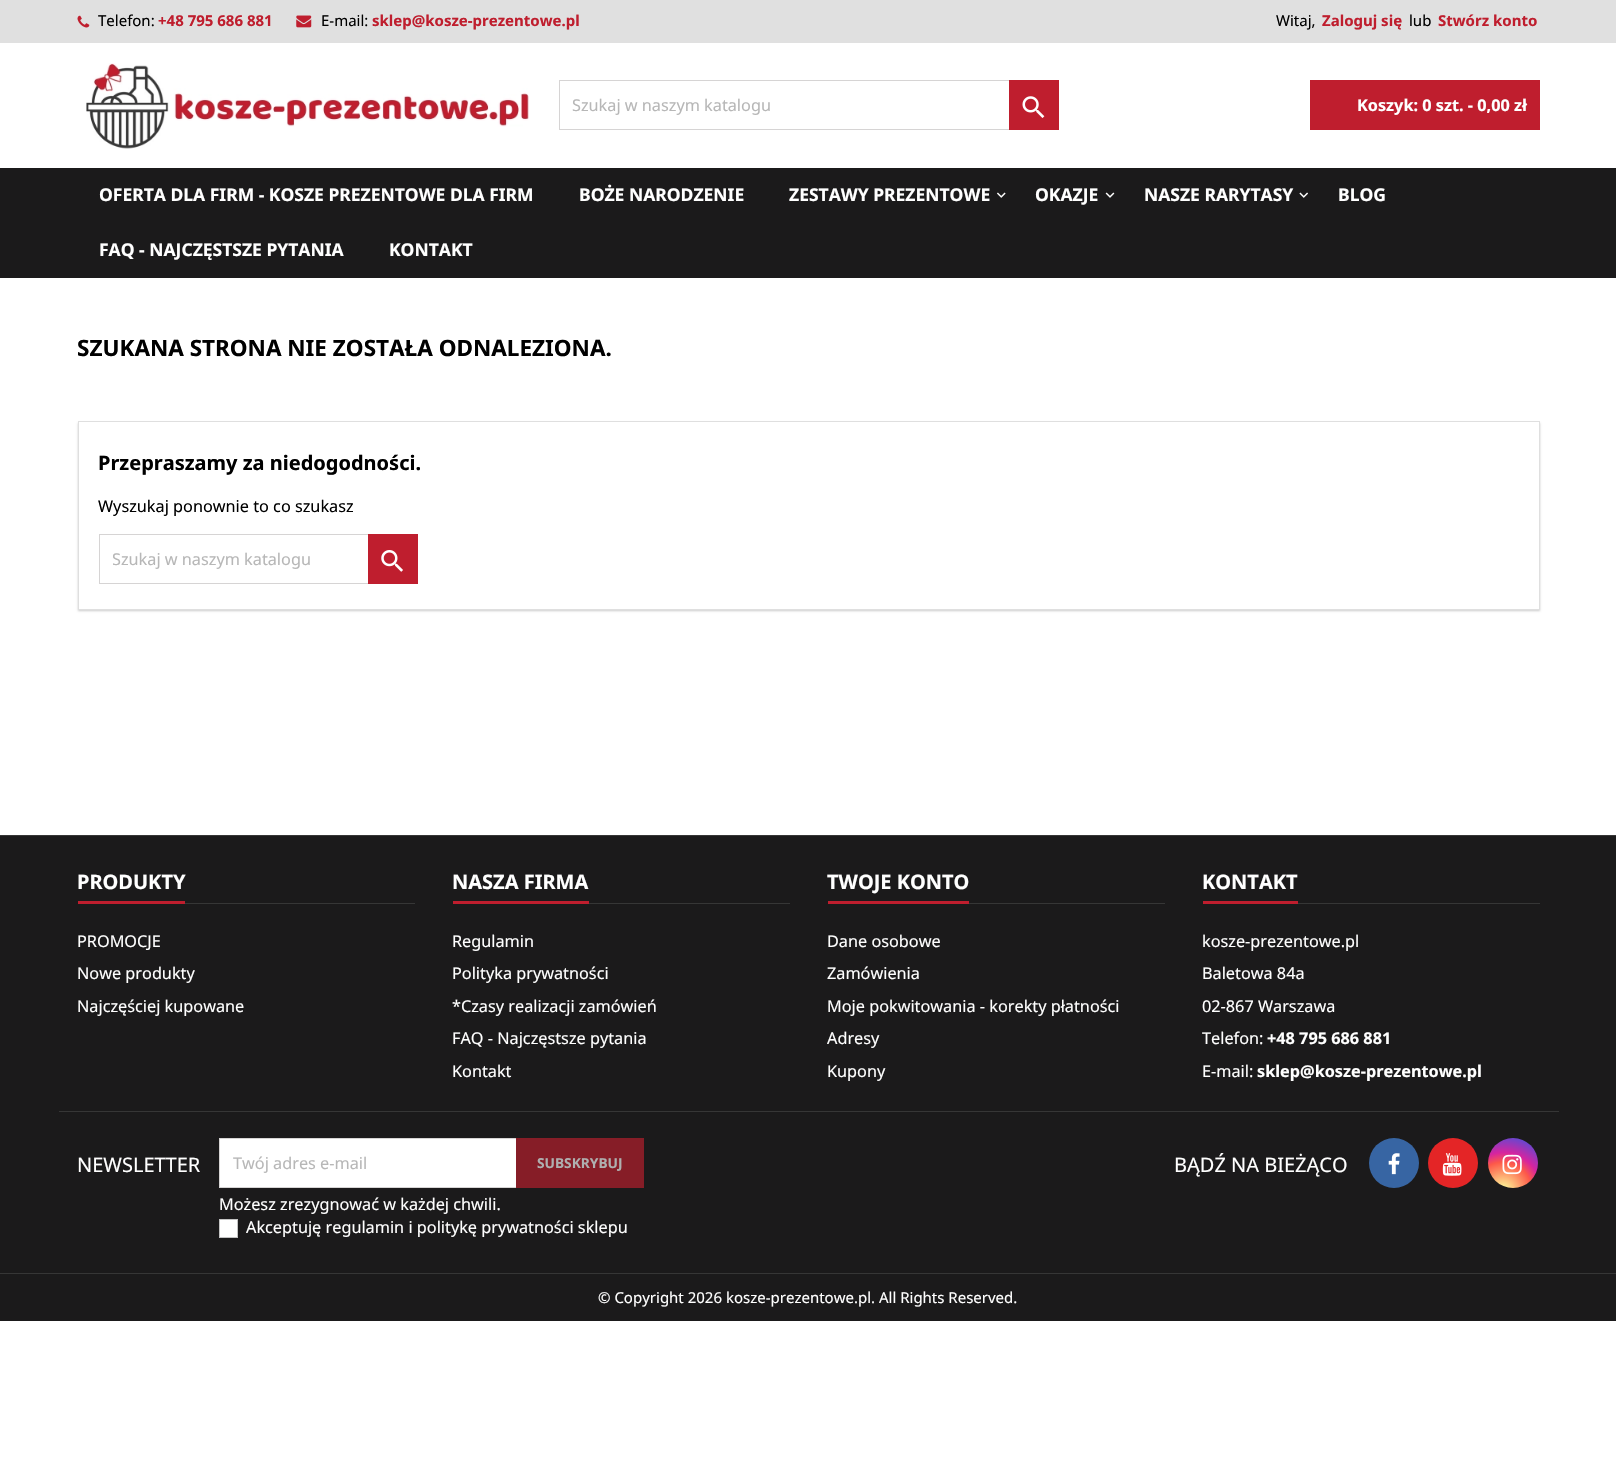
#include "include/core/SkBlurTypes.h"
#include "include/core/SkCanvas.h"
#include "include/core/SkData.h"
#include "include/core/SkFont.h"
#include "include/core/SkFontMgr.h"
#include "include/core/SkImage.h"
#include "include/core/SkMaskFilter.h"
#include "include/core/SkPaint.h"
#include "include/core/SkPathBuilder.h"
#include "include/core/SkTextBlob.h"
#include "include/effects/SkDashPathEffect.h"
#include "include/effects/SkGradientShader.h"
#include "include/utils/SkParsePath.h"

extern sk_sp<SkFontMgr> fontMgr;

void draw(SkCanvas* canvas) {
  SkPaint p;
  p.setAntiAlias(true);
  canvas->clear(SK_ColorWHITE);
  p.setColor(SkColorSetRGB(224, 224, 224));
  canvas->drawRect(SkRect::MakeLTRB(0, 0, 1616, 43), p);
  canvas->drawImageRect(SkImages::DeferredFromEncodedData(SkData::MakeFromFileName("images/1.png")), SkRect::MakeLTRB(77, 15, 90, 28), SkSamplingOptions());
  canvas->drawImageRect(SkImages::DeferredFromEncodedData(SkData::MakeFromFileName("images/2.png")), SkRect::MakeLTRB(296, 15, 312, 28), SkSamplingOptions());
  canvas->drawImageRect(SkImages::DeferredFromEncodedData(SkData::MakeFromFileName("images/3.png")), SkRect::MakeLTRB(86, 63, 529, 149), SkSamplingOptions());
  p.setStyle(SkPaint::kStroke_Style);
  p.setStrokeWidth(1);
  p.setColor(SkColorSetRGB(214, 212, 212));
  canvas->drawRect(SkRect::MakeLTRB(559.5f, 80.5f, 1058.5f, 129.5f), p);
  p.setStyle(SkPaint::kFill_Style);
  p.setColor(SkColorSetRGB(191, 30, 46));
  canvas->drawRect(SkRect::MakeLTRB(1009, 80, 1059, 130), p);
  canvas->drawImageRect(SkImages::DeferredFromEncodedData(SkData::MakeFromFileName("images/4.png")), SkRect::MakeLTRB(1022, 96, 1045, 118), SkSamplingOptions());
  canvas->drawRect(SkRect::MakeLTRB(1310, 80, 1540, 130), p);
  p.setColor(SkColorSetRGB(27, 26, 27));
  canvas->drawRect(SkRect::MakeLTRB(0, 168, 1616, 278), p);
  canvas->drawImageRect(SkImages::DeferredFromEncodedData(SkData::MakeFromFileName("images/5.png")), SkRect::MakeLTRB(997, 192, 1006, 198), SkSamplingOptions());
  canvas->drawImageRect(SkImages::DeferredFromEncodedData(SkData::MakeFromFileName("images/6.png")), SkRect::MakeLTRB(1105, 192, 1115, 198), SkSamplingOptions());
  canvas->drawImageRect(SkImages::DeferredFromEncodedData(SkData::MakeFromFileName("images/7.png")), SkRect::MakeLTRB(1299, 192, 1308, 198), SkSamplingOptions());
  canvas->save();
  canvas->clipPath(SkPathBuilder(SkPathFillType::kEvenOdd).moveTo(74, 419).lineTo(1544, 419).lineTo(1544, 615).lineTo(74, 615).close().moveTo(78, 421).lineTo(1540, 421).lineTo(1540, 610).lineTo(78, 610).close().detach(), true);
  p.setColor(SkColorSetARGB(51, 0, 0, 0));
  p.setMaskFilter(SkMaskFilter::MakeBlur(kNormal_SkBlurStyle, 1));
  canvas->drawRect(SkRect::MakeLTRB(78, 423, 1540, 611), p);
  p.setMaskFilter(nullptr);
  canvas->restore();
  p.setStyle(SkPaint::kStroke_Style);
  p.setColor(SkColorSetRGB(223, 223, 223));
  canvas->drawRect(SkRect::MakeLTRB(78.5f, 421.5f, 1539.5f, 609.5f), p);
  p.setColor(SkColorSetRGB(214, 212, 212));
  canvas->drawRect(SkRect::MakeLTRB(99.5f, 534.5f, 417.5f, 583.5f), p);
  p.setStyle(SkPaint::kFill_Style);
  p.setColor(SkColorSetRGB(191, 30, 46));
  canvas->drawRect(SkRect::MakeLTRB(368, 534, 418, 584), p);
  canvas->drawImageRect(SkImages::DeferredFromEncodedData(SkData::MakeFromFileName("images/8.png")), SkRect::MakeLTRB(381, 550, 403, 572), SkSamplingOptions());
  p.setColor(SkColorSetRGB(27, 26, 27));
  canvas->drawRect(SkRect::MakeLTRB(0, 836, 1616, 1321), p);
  p.setColor(SkColorSetRGB(54, 54, 54));
  canvas->drawRect(SkRect::MakeLTRB(0, 835, 1616, 836), p);
  canvas->drawRect(SkRect::MakeLTRB(185, 903, 415, 904), p);
  p.setColor(SkColorSetRGB(191, 30, 46));
  canvas->drawRect(SkRect::MakeLTRB(78, 901, 185, 904), p);
  p.setColor(SkColorSetRGB(54, 54, 54));
  canvas->drawRect(SkRect::MakeLTRB(589, 903, 790, 904), p);
  p.setColor(SkColorSetRGB(191, 30, 46));
  canvas->drawRect(SkRect::MakeLTRB(453, 901, 589, 904), p);
  p.setColor(SkColorSetRGB(54, 54, 54));
  canvas->drawRect(SkRect::MakeLTRB(969, 903, 1165, 904), p);
  p.setColor(SkColorSetRGB(191, 30, 46));
  canvas->drawRect(SkRect::MakeLTRB(828, 901, 969, 904), p);
  p.setColor(SkColorSetRGB(54, 54, 54));
  canvas->drawRect(SkRect::MakeLTRB(1298, 903, 1540, 904), p);
  p.setColor(SkColorSetRGB(191, 30, 46));
  canvas->drawRect(SkRect::MakeLTRB(1203, 901, 1298, 904), p);
  p.setColor(SkColorSetRGB(54, 54, 54));
  canvas->drawRect(SkRect::MakeLTRB(59, 1111, 1559, 1112), p);
  p.setColor(SK_ColorWHITE);
  canvas->drawRect(SkRect::MakeLTRB(220, 1139, 516, 1187), p);
  p.setStyle(SkPaint::kStroke_Style);
  p.setColor(SkColorSetRGB(214, 212, 212));
  canvas->drawRect(SkRect::MakeLTRB(219.5f, 1138.5f, 537.5f, 1187.5f), p);
  p.setStyle(SkPaint::kFill_Style);
  p.setColor(SkColorSetRGB(134, 29, 39));
  canvas->drawRect(SkRect::MakeLTRB(516, 1138, 644, 1188), p);
  p.setColor(SK_ColorWHITE);
  canvas->drawRect(SkRect::MakeLTRB(219.5f, 1219.5f, 237.5f, 1237.5f), p);
  p.setStyle(SkPaint::kStroke_Style);
  p.setColor(SkColorSetRGB(195, 195, 195));
  canvas->drawRect(SkRect::MakeLTRB(219.5f, 1219.5f, 237.5f, 1237.5f), p);
  p.setStyle(SkPaint::kFill_Style);
  p.setColor(SkColorSetRGB(55, 101, 163));
  canvas->drawCircle(1394, 1163, 25, p);
  canvas->drawImageRect(SkImages::DeferredFromEncodedData(SkData::MakeFromFileName("images/9.png")), SkRect::MakeLTRB(1388, 1153, 1400, 1175), SkSamplingOptions());
  p.setColor(SkColorSetRGB(228, 37, 38));
  canvas->drawCircle(1453, 1163, 25, p);
  canvas->drawImageRect(SkImages::DeferredFromEncodedData(SkData::MakeFromFileName("images/10.png")), SkRect::MakeLTRB(1442, 1153, 1462, 1176), SkSamplingOptions());
  {
    const SkColor colors[] = {SkColorSetRGB(253, 244, 151), SkColorSetRGB(253, 244, 151), SkColorSetRGB(253, 89, 73), SkColorSetRGB(214, 36, 159), SkColorSetRGB(40, 90, 235)};
    const float stops[] = {0, 0.05f, 0.45f, 0.6f, 1};
    p.setShader(SkGradientShader::MakeRadial({1503, 1191}, 64, colors, stops, 5, SkTileMode::kClamp));
    p.setAlpha(255);
  }
  canvas->drawCircle(1513, 1163, 25, p);
  canvas->drawImageRect(SkImages::DeferredFromEncodedData(SkData::MakeFromFileName("images/11.png")), SkRect::MakeLTRB(1502, 1154, 1522, 1175), SkSamplingOptions());
  p.setShader(nullptr);
  p.setColor(SkColorSetRGB(54, 54, 54));
  canvas->drawRect(SkRect::MakeLTRB(0, 1273, 1616, 1274), p);
  SkFont font1(fontMgr->matchFamilyStyle("Noto Sans", SkFontStyle::Normal()), 15);
  font1.setSubpixel(true);
  p.setColor(SK_ColorBLACK);
  canvas->drawString("Telefon:", 98, 26, font1, p);
  SkFont font2(fontMgr->matchFamilyStyle("Noto Sans", SkFontStyle::Bold()), 15);
  font2.setSubpixel(true);
  p.setColor(SkColorSetRGB(191, 30, 46));
  canvas->drawString("+48 795 686 881", 158, 26, font2, p);
  p.setColor(SK_ColorBLACK);
  canvas->drawString("E-mail:", 321, 26, font1, p);
  p.setColor(SkColorSetRGB(191, 30, 46));
  canvas->drawString("sklep@kosze-prezentowe.pl", 372, 26, font2, p);
  p.setColor(SK_ColorBLACK);
  canvas->drawString("Witaj,", 1276, 26, font1, p);
  p.setColor(SkColorSetRGB(191, 30, 46));
  canvas->drawString("Zaloguj się", 1322, 26, font2, p);
  p.setColor(SK_ColorBLACK);
  canvas->drawString("lub", 1409, 26, font1, p);
  p.setColor(SkColorSetRGB(191, 30, 46));
  canvas->drawString("Stwórz konto", 1438, 26, font2, p);
  SkFont font3(fontMgr->matchFamilyStyle("Noto Sans", SkFontStyle::Normal()), 16.25f);
  font3.setSubpixel(true);
  p.setColor(SkColorSetRGB(183, 183, 183));
  canvas->drawString("Szukaj w naszym katalogu", 572, 111, font3, p);
  SkFont font4(fontMgr->matchFamilyStyle("Noto Sans", SkFontStyle::Bold()), 16.25f);
  font4.setSubpixel(true);
  p.setColor(SK_ColorWHITE);
  canvas->drawString("Koszyk: 0 szt. - 0,00 zł", 1357, 111, font4, p);
  SkFont font5(fontMgr->matchFamilyStyle("Noto Sans", SkFontStyle::Bold()), 17.5f);
  font5.setSubpixel(true);
  canvas->drawString("OFERTA DLA FIRM - KOSZE PREZENTOWE DLA FIRM", 99, 201, font5, p);
  canvas->drawString("BOŻE NARODZENIE", 579, 201, font5, p);
  canvas->drawString("ZESTAWY PREZENTOWE", 789, 201, font5, p);
  canvas->drawString("OKAZJE", 1035, 201, font5, p);
  canvas->drawString("NASZE RARYTASY", 1144, 201, font5, p);
  canvas->drawString("BLOG", 1338, 201, font5, p);
  canvas->drawString("FAQ - NAJCZĘSTSZE PYTANIA", 99, 256, font5, p);
  canvas->drawString("KONTAKT", 389, 256, font5, p);
  SkFont font6(fontMgr->matchFamilyStyle("Noto Sans", SkFontStyle::Bold()), 22.5f);
  font6.setSubpixel(true);
  p.setColor(SK_ColorBLACK);
  canvas->drawString("SZUKANA STRONA NIE ZOSTAŁA ODNALEZIONA.", 77, 356, font6, p);
  SkFont font7(fontMgr->matchFamilyStyle("Noto Sans", SkFontStyle::Bold()), 20);
  font7.setSubpixel(true);
  canvas->drawString("Przepraszamy za niedogodności.", 98, 470, font7, p);
  canvas->drawString("Wyszukaj ponownie to co szukasz", 98, 512, font3, p);
  canvas->save();
  canvas->clipRect(SkRect::MakeLTRB(113, 548, 404, 570));
  p.setColor(SkColorSetRGB(183, 183, 183));
  canvas->drawString("Szukaj w naszym katalogu", 112, 565, font3, p);
  canvas->restore();
  p.setColor(SK_ColorWHITE);
  canvas->drawString("PRODUKTY", 77, 889, font7, p);
  canvas->drawString("PROMOCJE", 77, 947, font3, p);
  canvas->drawString("Nowe produkty", 77, 979, font3, p);
  canvas->drawString("Najczęściej kupowane", 77, 1012, font3, p);
  canvas->drawString("NASZA FIRMA", 452, 889, font7, p);
  canvas->drawString("Regulamin", 452, 947, font3, p);
  canvas->drawString("Polityka prywatności", 452, 979, font3, p);
  canvas->drawString("*Czasy realizacji zamówień", 452, 1012, font3, p);
  canvas->drawString("FAQ - Najczęstsze pytania", 452, 1044, font3, p);
  canvas->drawString("Kontakt", 452, 1077, font3, p);
  canvas->drawString("TWOJE KONTO", 827, 889, font7, p);
  canvas->drawString("Dane osobowe", 827, 947, font3, p);
  canvas->drawString("Zamówienia", 827, 979, font3, p);
  canvas->drawString("Moje pokwitowania - korekty płatności", 827, 1012, font3, p);
  canvas->drawString("Adresy", 827, 1044, font3, p);
  canvas->drawString("Kupony", 827, 1077, font3, p);
  canvas->drawString("KONTAKT", 1202, 889, font7, p);
  canvas->drawString("kosze-prezentowe.pl", 1202, 947, font3, p);
  canvas->drawString("Baletowa 84a", 1202, 979, font3, p);
  canvas->drawString("02-867 Warszawa", 1202, 1012, font3, p);
  canvas->drawString("Telefon:", 1202, 1044, font3, p);
  canvas->drawString("+48 795 686 881", 1267, 1044, font4, p);
  canvas->drawString("E-mail:", 1202, 1077, font3, p);
  canvas->drawString("sklep@kosze-prezentowe.pl", 1257, 1077, font4, p);
  SkFont font8(fontMgr->matchFamilyStyle("Noto Sans", SkFontStyle::Normal()), 20);
  font8.setSubpixel(true);
  canvas->drawString("NEWSLETTER", 77, 1172, font8, p);
  p.setColor(SkColorSetRGB(183, 183, 183));
  canvas->drawString("Twój adres e-mail", 233, 1169, font3, p);
  SkFont font9(fontMgr->matchFamilyStyle("Noto Sans", SkFontStyle::Bold()), 13.75f);
  font9.setSubpixel(true);
  p.setColor(SkColorSetRGB(175, 175, 175));
  canvas->drawString("SUBSKRYBUJ", 537, 1168, font9, p);
  p.setColor(SK_ColorWHITE);
  canvas->drawString("Możesz zrezygnować w każdej chwili.", 219, 1210, font3, p);
  canvas->drawString("Akceptuję regulamin i politykę prywatności sklepu", 246, 1233, font3, p);
  canvas->drawString("BĄDŹ NA BIEŻĄCO", 1174, 1172, font8, p);
  canvas->drawString("© Copyright 2026 kosze-prezentowe.pl. All Rights Reserved.", 598, 1303, font1, p);
}
